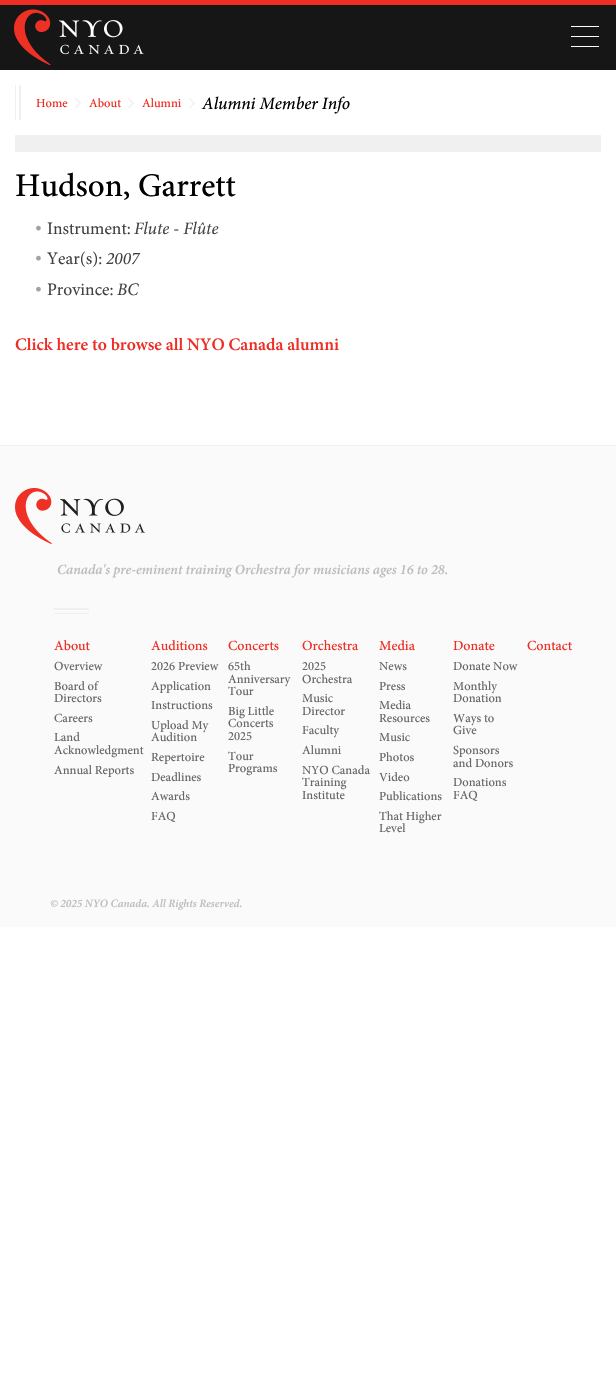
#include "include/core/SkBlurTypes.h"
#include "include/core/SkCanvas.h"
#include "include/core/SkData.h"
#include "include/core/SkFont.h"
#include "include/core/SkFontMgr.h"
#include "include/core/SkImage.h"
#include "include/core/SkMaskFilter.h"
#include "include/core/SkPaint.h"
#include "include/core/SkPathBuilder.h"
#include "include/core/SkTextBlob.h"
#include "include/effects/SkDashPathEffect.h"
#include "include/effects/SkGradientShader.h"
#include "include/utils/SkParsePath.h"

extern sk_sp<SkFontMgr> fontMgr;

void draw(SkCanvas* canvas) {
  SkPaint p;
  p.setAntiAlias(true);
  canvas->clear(SK_ColorWHITE);
  p.setColor(SkColorSetRGB(22, 22, 22));
  canvas->drawRect(SkRect::MakeLTRB(0, 5, 616, 70), p);
  p.setColor(SkColorSetRGB(238, 46, 36));
  canvas->drawRect(SkRect::MakeLTRB(0, 0, 616, 5), p);
  canvas->drawImageRect(SkImages::DeferredFromEncodedData(SkData::MakeFromFileName("images/1.png")), SkRect::MakeLTRB(14, 9, 144, 65), SkSamplingOptions());
  p.setColor(SK_ColorWHITE);
  canvas->drawRect(SkRect::MakeLTRB(571, 36, 599, 37), p);
  canvas->drawRect(SkRect::MakeLTRB(571, 26, 599, 27), p);
  canvas->drawRect(SkRect::MakeLTRB(571, 46, 599, 47), p);
  p.setColor(SkColorSetRGB(240, 240, 240));
  canvas->drawRect(SkRect::MakeLTRB(19, 85, 21, 120), p);
  canvas->drawRect(SkRect::MakeLTRB(15, 85, 16, 120), p);
  canvas->drawImageRect(SkImages::DeferredFromEncodedData(SkData::MakeFromFileName("images/2.png")), SkRect::MakeLTRB(75, 98, 81, 108), SkSamplingOptions());
  canvas->drawImageRect(SkImages::DeferredFromEncodedData(SkData::MakeFromFileName("images/2.png")), SkRect::MakeLTRB(128, 98, 134, 108), SkSamplingOptions());
  canvas->drawImageRect(SkImages::DeferredFromEncodedData(SkData::MakeFromFileName("images/2.png")), SkRect::MakeLTRB(189, 98, 195, 108), SkSamplingOptions());
  canvas->drawRect(SkRect::MakeLTRB(15, 135, 601, 152), p);
  canvas->drawImageRect(SkImages::DeferredFromEncodedData(SkData::MakeFromFileName("images/3.png")), SkRect::MakeLTRB(36, 225, 41, 231), SkSamplingOptions());
  canvas->drawImageRect(SkImages::DeferredFromEncodedData(SkData::MakeFromFileName("images/3.png")), SkRect::MakeLTRB(36, 255, 41, 261), SkSamplingOptions());
  canvas->drawImageRect(SkImages::DeferredFromEncodedData(SkData::MakeFromFileName("images/3.png")), SkRect::MakeLTRB(36, 286, 41, 292), SkSamplingOptions());
  p.setColor(SkColorSetRGB(250, 250, 250));
  canvas->drawRect(SkRect::MakeLTRB(0, 446, 616, 927), p);
  p.setColor(SkColorSetRGB(240, 240, 240));
  canvas->drawRect(SkRect::MakeLTRB(0, 445, 616, 446), p);
  canvas->drawImageRect(SkImages::DeferredFromEncodedData(SkData::MakeFromFileName("images/4.png")), SkRect::MakeLTRB(15, 488, 145, 545), SkSamplingOptions());
  canvas->drawRect(SkRect::MakeLTRB(54, 608, 89, 610), p);
  canvas->drawRect(SkRect::MakeLTRB(54, 613, 89, 614), p);
  SkFont font1(fontMgr->matchFamilyStyle("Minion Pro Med", SkFontStyle(500, SkFontStyle::kNormal_Width, SkFontStyle::kUpright_Slant)), 12.5f);
  font1.setSubpixel(true);
  p.setColor(SkColorSetRGB(238, 46, 36));
  canvas->drawString("Home", 36, 107, font1, p);
  canvas->drawString("About", 89, 107, font1, p);
  canvas->drawString("Alumni", 142, 107, font1, p);
  SkFont font2(fontMgr->matchFamilyStyle("Minion Pro Med", SkFontStyle(500, SkFontStyle::kNormal_Width, SkFontStyle::kItalic_Slant)), 17.5f);
  font2.setSubpixel(true);
  p.setColor(SK_ColorBLACK);
  canvas->drawString("Alumni Member Info", 202, 109, font2, p);
  SkFont font3(fontMgr->matchFamilyStyle("Minion Pro Med", SkFontStyle(500, SkFontStyle::kNormal_Width, SkFontStyle::kUpright_Slant)), 33);
  font3.setSubpixel(true);
  canvas->drawString("Hudson, Garrett", 15, 196, font3, p);
  SkFont font4(fontMgr->matchFamilyStyle("Minion", SkFontStyle::Normal()), 17.5f);
  font4.setSubpixel(true);
  p.setColor(SkColorSetRGB(65, 65, 65));
  canvas->drawString("Instrument:", 47, 234, font4, p);
  SkFont font5(fontMgr->matchFamilyStyle("Minion", SkFontStyle::Italic()), 17.5f);
  font5.setSubpixel(true);
  canvas->drawString("Flute - Flûte", 134, 234, font5, p);
  canvas->drawString("Year(s):", 47, 264, font4, p);
  canvas->drawString("2007", 106, 264, font5, p);
  canvas->drawString("Province:", 47, 295, font4, p);
  canvas->drawString("BC", 117, 295, font5, p);
  SkFont font6(fontMgr->matchFamilyStyle("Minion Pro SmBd", SkFontStyle(600, SkFontStyle::kNormal_Width, SkFontStyle::kUpright_Slant)), 17.5f);
  font6.setSubpixel(true);
  p.setColor(SkColorSetRGB(238, 46, 36));
  canvas->drawString("Click here to browse all NYO Canada alumni", 15, 350, font6, p);
  SkFont font7(fontMgr->matchFamilyStyle("Minion Pro SmBd", SkFontStyle(600, SkFontStyle::kNormal_Width, SkFontStyle::kItalic_Slant)), 14);
  font7.setSubpixel(true);
  p.setColor(SkColorSetRGB(189, 189, 189));
  canvas->drawString("Canada's pre-eminent training Orchestra for musicians ages 16 to 28.", 57, 574, font7, p);
  SkFont font8(fontMgr->matchFamilyStyle("Minion Pro Med", SkFontStyle(500, SkFontStyle::kNormal_Width, SkFontStyle::kUpright_Slant)), 14);
  font8.setSubpixel(true);
  p.setColor(SkColorSetRGB(238, 46, 36));
  canvas->drawString("About", 54, 650, font8, p);
  p.setColor(SkColorSetRGB(103, 103, 103));
  canvas->drawString("Overview", 54, 670, font1, p);
  canvas->drawString("Board of", 54, 690, font1, p);
  canvas->drawString("Directors", 54, 702, font1, p);
  canvas->drawString("Careers", 54, 722, font1, p);
  canvas->drawString("Land", 54, 741, font1, p);
  canvas->drawString("Acknowledgment", 54, 754, font1, p);
  canvas->drawString("Annual Reports", 54, 774, font1, p);
  p.setColor(SkColorSetRGB(238, 46, 36));
  canvas->drawString("Auditions", 151, 650, font8, p);
  p.setColor(SkColorSetRGB(103, 103, 103));
  canvas->drawString("2026 Preview", 151, 670, font1, p);
  canvas->drawString("Application", 151, 690, font1, p);
  canvas->drawString("Instructions", 151, 709, font1, p);
  canvas->drawString("Upload My", 151, 729, font1, p);
  canvas->drawString("Audition", 151, 741, font1, p);
  canvas->drawString("Repertoire", 151, 761, font1, p);
  canvas->drawString("Deadlines", 151, 781, font1, p);
  canvas->drawString("Awards", 151, 800, font1, p);
  canvas->drawString("FAQ", 151, 820, font1, p);
  p.setColor(SkColorSetRGB(238, 46, 36));
  canvas->drawString("Concerts", 228, 650, font8, p);
  p.setColor(SkColorSetRGB(103, 103, 103));
  canvas->drawString("65th", 228, 670, font1, p);
  canvas->drawString("Anniversary", 228, 683, font1, p);
  canvas->drawString("Tour", 228, 695, font1, p);
  canvas->drawString("Big Little", 228, 715, font1, p);
  canvas->drawString("Concerts", 228, 727, font1, p);
  canvas->drawString("2025", 228, 740, font1, p);
  canvas->drawString("Tour", 228, 760, font1, p);
  canvas->drawString("Programs", 228, 772, font1, p);
  p.setColor(SkColorSetRGB(238, 46, 36));
  canvas->drawString("Orchestra", 302, 650, font8, p);
  p.setColor(SkColorSetRGB(103, 103, 103));
  canvas->drawString("2025", 302, 670, font1, p);
  canvas->drawString("Orchestra", 302, 683, font1, p);
  canvas->drawString("Music", 302, 702, font1, p);
  canvas->drawString("Director", 302, 715, font1, p);
  canvas->drawString("Faculty", 302, 734, font1, p);
  canvas->drawString("Alumni", 302, 754, font1, p);
  canvas->drawString("NYO Canada", 302, 774, font1, p);
  canvas->drawString("Training", 302, 786, font1, p);
  canvas->drawString("Institute", 302, 799, font1, p);
  p.setColor(SkColorSetRGB(238, 46, 36));
  canvas->drawString("Media", 379, 650, font8, p);
  p.setColor(SkColorSetRGB(103, 103, 103));
  canvas->drawString("News", 379, 670, font1, p);
  canvas->drawString("Press", 379, 690, font1, p);
  canvas->drawString("Media", 379, 709, font1, p);
  canvas->drawString("Resources", 379, 722, font1, p);
  canvas->drawString("Music", 379, 741, font1, p);
  canvas->drawString("Photos", 379, 761, font1, p);
  canvas->drawString("Video", 379, 781, font1, p);
  canvas->drawString("Publications", 379, 800, font1, p);
  canvas->drawString("That Higher", 379, 820, font1, p);
  canvas->drawString("Level", 379, 832, font1, p);
  p.setColor(SkColorSetRGB(238, 46, 36));
  canvas->drawString("Donate", 453, 650, font8, p);
  p.setColor(SkColorSetRGB(103, 103, 103));
  canvas->drawString("Donate Now", 453, 670, font1, p);
  canvas->drawString("Monthly", 453, 690, font1, p);
  canvas->drawString("Donation", 453, 702, font1, p);
  canvas->drawString("Ways to", 453, 722, font1, p);
  canvas->drawString("Give", 453, 734, font1, p);
  canvas->drawString("Sponsors", 453, 754, font1, p);
  canvas->drawString("and Donors", 453, 767, font1, p);
  canvas->drawString("Donations", 453, 786, font1, p);
  canvas->drawString("FAQ", 453, 799, font1, p);
  p.setColor(SkColorSetRGB(238, 46, 36));
  canvas->drawString("Contact", 527, 650, font8, p);
  SkFont font9(fontMgr->matchFamilyStyle("Minion Pro SmBd", SkFontStyle(600, SkFontStyle::kNormal_Width, SkFontStyle::kItalic_Slant)), 11.25f);
  font9.setSubpixel(true);
  p.setColor(SkColorSetRGB(189, 189, 189));
  canvas->drawString("© 2025 NYO Canada. All Rights Reserved.", 50, 907, font9, p);
}
